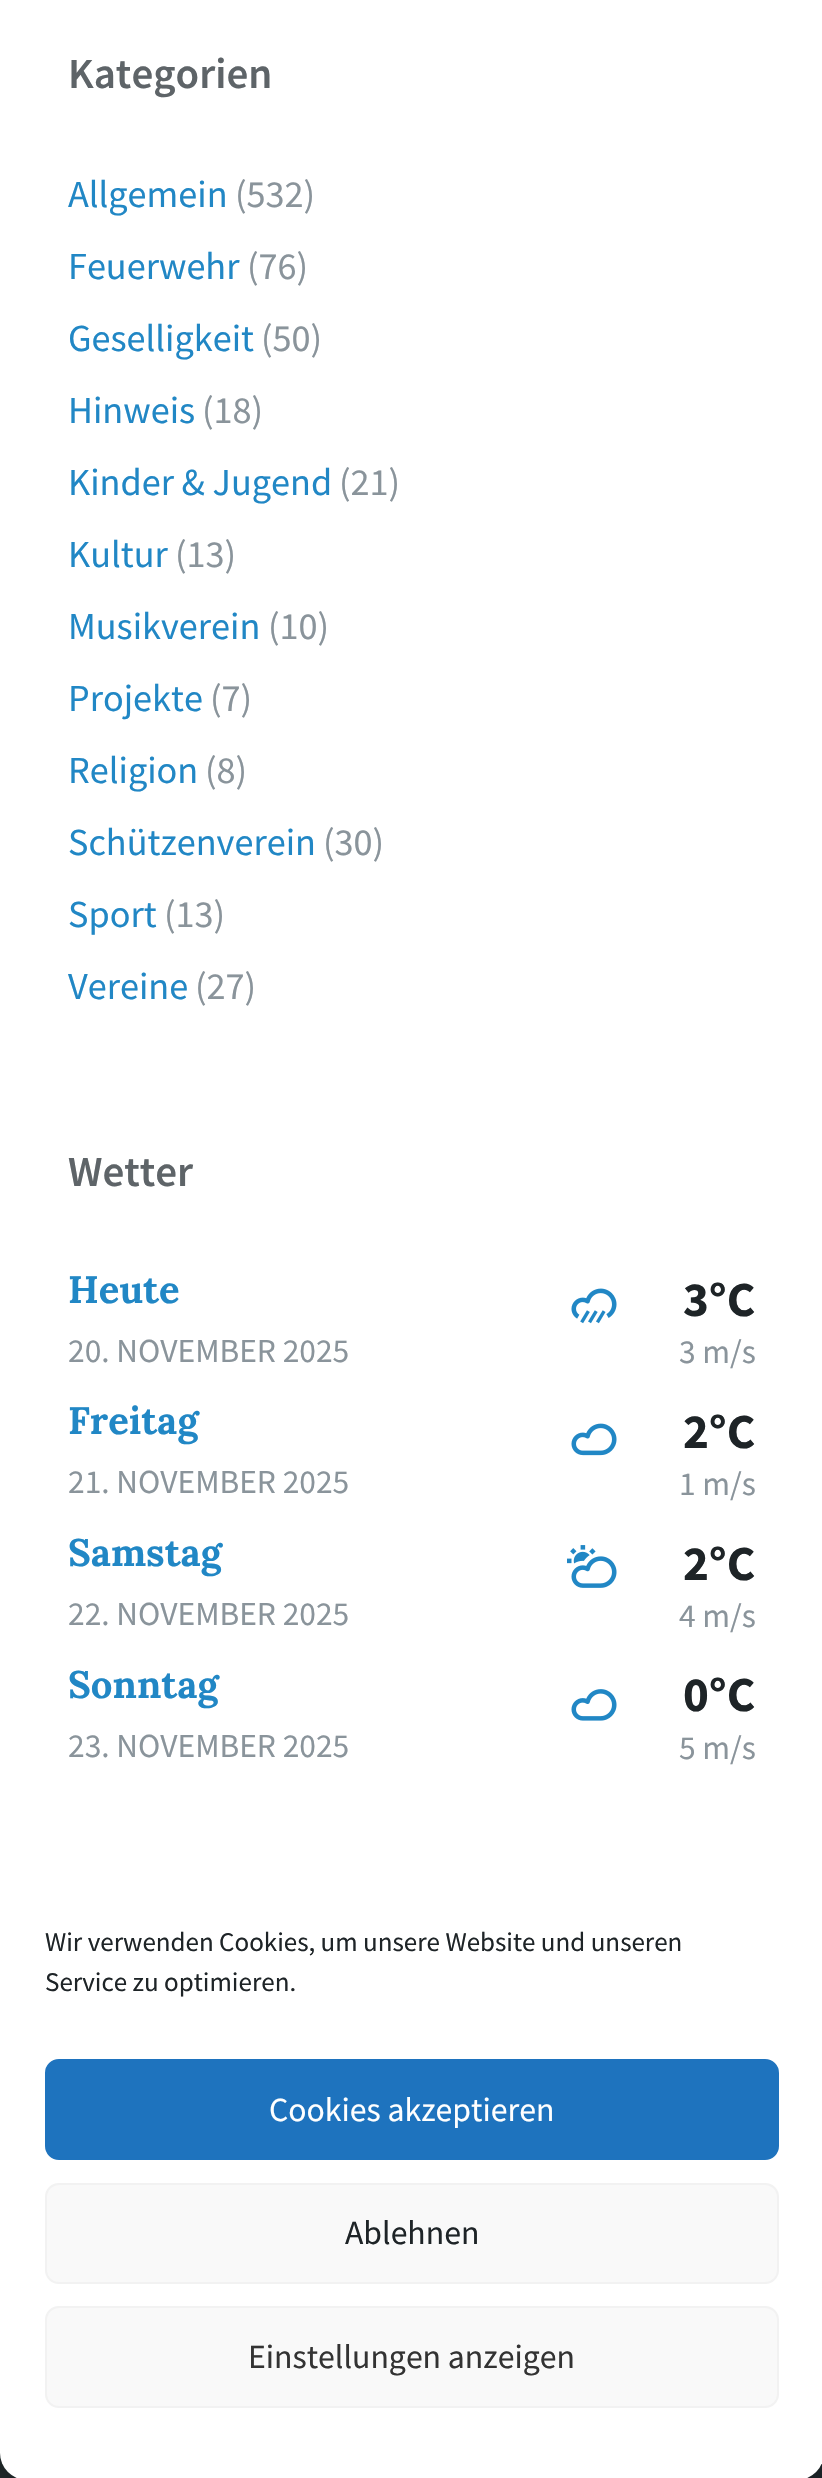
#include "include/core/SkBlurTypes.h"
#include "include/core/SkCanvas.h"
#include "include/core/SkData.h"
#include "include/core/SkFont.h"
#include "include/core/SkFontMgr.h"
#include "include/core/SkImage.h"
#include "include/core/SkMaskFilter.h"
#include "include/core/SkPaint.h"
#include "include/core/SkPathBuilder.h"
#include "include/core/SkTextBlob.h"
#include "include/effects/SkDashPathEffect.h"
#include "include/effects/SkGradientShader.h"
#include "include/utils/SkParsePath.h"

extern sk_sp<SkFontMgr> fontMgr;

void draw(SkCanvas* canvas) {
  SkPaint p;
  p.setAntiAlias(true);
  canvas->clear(SK_ColorWHITE);
  canvas->drawImageRect(SkImages::DeferredFromEncodedData(SkData::MakeFromFileName("images/1.png")), SkRect::MakeLTRB(571, 1288, 617, 1324), SkSamplingOptions());
  canvas->drawImageRect(SkImages::DeferredFromEncodedData(SkData::MakeFromFileName("images/2.png")), SkRect::MakeLTRB(571, 1423, 617, 1456), SkSamplingOptions());
  canvas->drawImageRect(SkImages::DeferredFromEncodedData(SkData::MakeFromFileName("images/3.png")), SkRect::MakeLTRB(567, 1545, 617, 1588), SkSamplingOptions());
  canvas->drawImageRect(SkImages::DeferredFromEncodedData(SkData::MakeFromFileName("images/4.png")), SkRect::MakeLTRB(571, 1689, 617, 1721), SkSamplingOptions());
  canvas->drawImageRect(SkImages::DeferredFromEncodedData(SkData::MakeFromFileName("images/5.png")), SkRect::MakeLTRB(0, 2453, 822, 2478), SkSamplingOptions());
  p.setColor(SK_ColorWHITE);
  canvas->drawRoundRect(SkRect::MakeLTRB(0, 1843, 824, 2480), 27, 27, p);
  p.setColor(SkColorSetRGB(30, 115, 190));
  canvas->drawRoundRect(SkRect::MakeLTRB(46, 2060, 778, 2159), 13, 13, p);
  p.setStyle(SkPaint::kStroke_Style);
  p.setStrokeWidth(2);
  canvas->drawRoundRect(SkRect::MakeLTRB(46, 2060, 778, 2159), 13, 13, p);
  p.setStyle(SkPaint::kFill_Style);
  p.setColor(SkColorSetRGB(249, 249, 249));
  canvas->drawRoundRect(SkRect::MakeLTRB(46, 2184, 778, 2283), 13, 13, p);
  p.setStyle(SkPaint::kStroke_Style);
  p.setColor(SkColorSetRGB(242, 242, 242));
  canvas->drawRoundRect(SkRect::MakeLTRB(46, 2184, 778, 2283), 13, 13, p);
  p.setStyle(SkPaint::kFill_Style);
  p.setColor(SkColorSetRGB(249, 249, 249));
  canvas->drawRoundRect(SkRect::MakeLTRB(46, 2307, 778, 2407), 13, 13, p);
  p.setStyle(SkPaint::kStroke_Style);
  p.setColor(SkColorSetRGB(242, 242, 242));
  canvas->drawRoundRect(SkRect::MakeLTRB(46, 2307, 778, 2407), 13, 13, p);
  SkFont font1(fontMgr->matchFamilyStyle("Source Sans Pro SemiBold", SkFontStyle(600, SkFontStyle::kNormal_Width, SkFontStyle::kUpright_Slant)), 43);
  font1.setSubpixel(true);
  p.setStyle(SkPaint::kFill_Style);
  p.setColor(SkColorSetRGB(94, 100, 104));
  canvas->drawString("Kategorien", 68, 88, font1, p);
  SkFont font2(fontMgr->matchFamilyStyle("Source Sans Pro", SkFontStyle::Normal()), 38.25f);
  font2.setSubpixel(true);
  p.setColor(SkColorSetRGB(33, 135, 197));
  canvas->drawString("Allgemein", 68, 207, font2, p);
  p.setColor(SkColorSetRGB(138, 148, 155));
  canvas->drawString("(532)", 235, 207, font2, p);
  p.setColor(SkColorSetRGB(33, 135, 197));
  canvas->drawString("Feuerwehr", 68, 279, font2, p);
  p.setColor(SkColorSetRGB(138, 148, 155));
  canvas->drawString("(76)", 247, 279, font2, p);
  p.setColor(SkColorSetRGB(33, 135, 197));
  canvas->drawString("Geselligkeit", 68, 351, font2, p);
  p.setColor(SkColorSetRGB(138, 148, 155));
  canvas->drawString("(50)", 261, 351, font2, p);
  p.setColor(SkColorSetRGB(33, 135, 197));
  canvas->drawString("Hinweis", 68, 423, font2, p);
  p.setColor(SkColorSetRGB(138, 148, 155));
  canvas->drawString("(18)", 202, 423, font2, p);
  p.setColor(SkColorSetRGB(33, 135, 197));
  canvas->drawString("Kinder & Jugend", 68, 495, font2, p);
  p.setColor(SkColorSetRGB(138, 148, 155));
  canvas->drawString("(21)", 339, 495, font2, p);
  p.setColor(SkColorSetRGB(33, 135, 197));
  canvas->drawString("Kultur", 68, 567, font2, p);
  p.setColor(SkColorSetRGB(138, 148, 155));
  canvas->drawString("(13)", 175, 567, font2, p);
  p.setColor(SkColorSetRGB(33, 135, 197));
  canvas->drawString("Musikverein", 68, 639, font2, p);
  p.setColor(SkColorSetRGB(138, 148, 155));
  canvas->drawString("(10)", 268, 639, font2, p);
  p.setColor(SkColorSetRGB(33, 135, 197));
  canvas->drawString("Projekte", 68, 711, font2, p);
  p.setColor(SkColorSetRGB(138, 148, 155));
  canvas->drawString("(7)", 210, 711, font2, p);
  p.setColor(SkColorSetRGB(33, 135, 197));
  canvas->drawString("Religion", 68, 783, font2, p);
  p.setColor(SkColorSetRGB(138, 148, 155));
  canvas->drawString("(8)", 205, 783, font2, p);
  p.setColor(SkColorSetRGB(33, 135, 197));
  canvas->drawString("Schützenverein", 68, 855, font2, p);
  p.setColor(SkColorSetRGB(138, 148, 155));
  canvas->drawString("(30)", 323, 855, font2, p);
  p.setColor(SkColorSetRGB(33, 135, 197));
  canvas->drawString("Sport", 68, 927, font2, p);
  p.setColor(SkColorSetRGB(138, 148, 155));
  canvas->drawString("(13)", 164, 927, font2, p);
  p.setColor(SkColorSetRGB(33, 135, 197));
  canvas->drawString("Vereine", 68, 999, font2, p);
  p.setColor(SkColorSetRGB(138, 148, 155));
  canvas->drawString("(27)", 195, 999, font2, p);
  p.setColor(SkColorSetRGB(94, 100, 104));
  canvas->drawString("Wetter", 68, 1186, font1, p);
  SkFont font3(fontMgr->matchFamilyStyle("Lora", SkFontStyle::Bold()), 38.25f);
  font3.setSubpixel(true);
  p.setColor(SkColorSetRGB(33, 135, 197));
  canvas->drawString("Heute", 68, 1303, font3, p);
  SkFont font4(fontMgr->matchFamilyStyle("Source Sans Pro", SkFontStyle::Normal()), 33.5f);
  font4.setSubpixel(true);
  p.setColor(SkColorSetRGB(138, 148, 155));
  canvas->drawString("20. NOVEMBER 2025", 68, 1362, font4, p);
  SkFont font5(fontMgr->matchFamilyStyle("Source Sans Pro", SkFontStyle::Bold()), 49);
  font5.setSubpixel(true);
  p.setColor(SkColorSetRGB(30, 36, 39));
  canvas->drawString("3°C", 683, 1316, font5, p);
  p.setColor(SkColorSetRGB(138, 148, 155));
  canvas->drawString("3 m/s", 679, 1363, font4, p);
  p.setColor(SkColorSetRGB(33, 135, 197));
  canvas->drawString("Freitag", 68, 1434, font3, p);
  p.setColor(SkColorSetRGB(138, 148, 155));
  canvas->drawString("21. NOVEMBER 2025", 68, 1493, font4, p);
  p.setColor(SkColorSetRGB(30, 36, 39));
  canvas->drawString("2°C", 683, 1448, font5, p);
  p.setColor(SkColorSetRGB(138, 148, 155));
  canvas->drawString("1 m/s", 679, 1495, font4, p);
  p.setColor(SkColorSetRGB(33, 135, 197));
  canvas->drawString("Samstag", 68, 1566, font3, p);
  p.setColor(SkColorSetRGB(138, 148, 155));
  canvas->drawString("22. NOVEMBER 2025", 68, 1625, font4, p);
  p.setColor(SkColorSetRGB(30, 36, 39));
  canvas->drawString("2°C", 683, 1580, font5, p);
  p.setColor(SkColorSetRGB(138, 148, 155));
  canvas->drawString("4 m/s", 679, 1627, font4, p);
  p.setColor(SkColorSetRGB(33, 135, 197));
  canvas->drawString("Sonntag", 68, 1698, font3, p);
  p.setColor(SkColorSetRGB(138, 148, 155));
  canvas->drawString("23. NOVEMBER 2025", 68, 1757, font4, p);
  p.setColor(SkColorSetRGB(30, 36, 39));
  canvas->drawString("0°C", 683, 1711, font5, p);
  p.setColor(SkColorSetRGB(138, 148, 155));
  canvas->drawString("5 m/s", 679, 1759, font4, p);
  SkFont font6(fontMgr->matchFamilyStyle("Source Sans Pro", SkFontStyle::Normal()), 27);
  font6.setSubpixel(true);
  p.setColor(SkColorSetRGB(30, 36, 39));
  canvas->drawString("Wir verwenden Cookies, um unsere Website und unseren", 45, 1951, font6, p);
  canvas->drawString("Service zu optimieren.", 45, 1991, font6, p);
  SkFont font7(fontMgr->matchFamilyStyle("Source Sans Pro", SkFontStyle::Normal()), 33.75f);
  font7.setSubpixel(true);
  p.setColor(SK_ColorWHITE);
  canvas->drawString("Cookies akzeptieren", 269, 2121, font7, p);
  p.setColor(SkColorSetRGB(30, 36, 39));
  canvas->drawString("Ablehnen", 345, 2244, font7, p);
  p.setColor(SkColorSetRGB(51, 51, 51));
  canvas->drawString("Einstellungen anzeigen", 248, 2368, font7, p);
}
